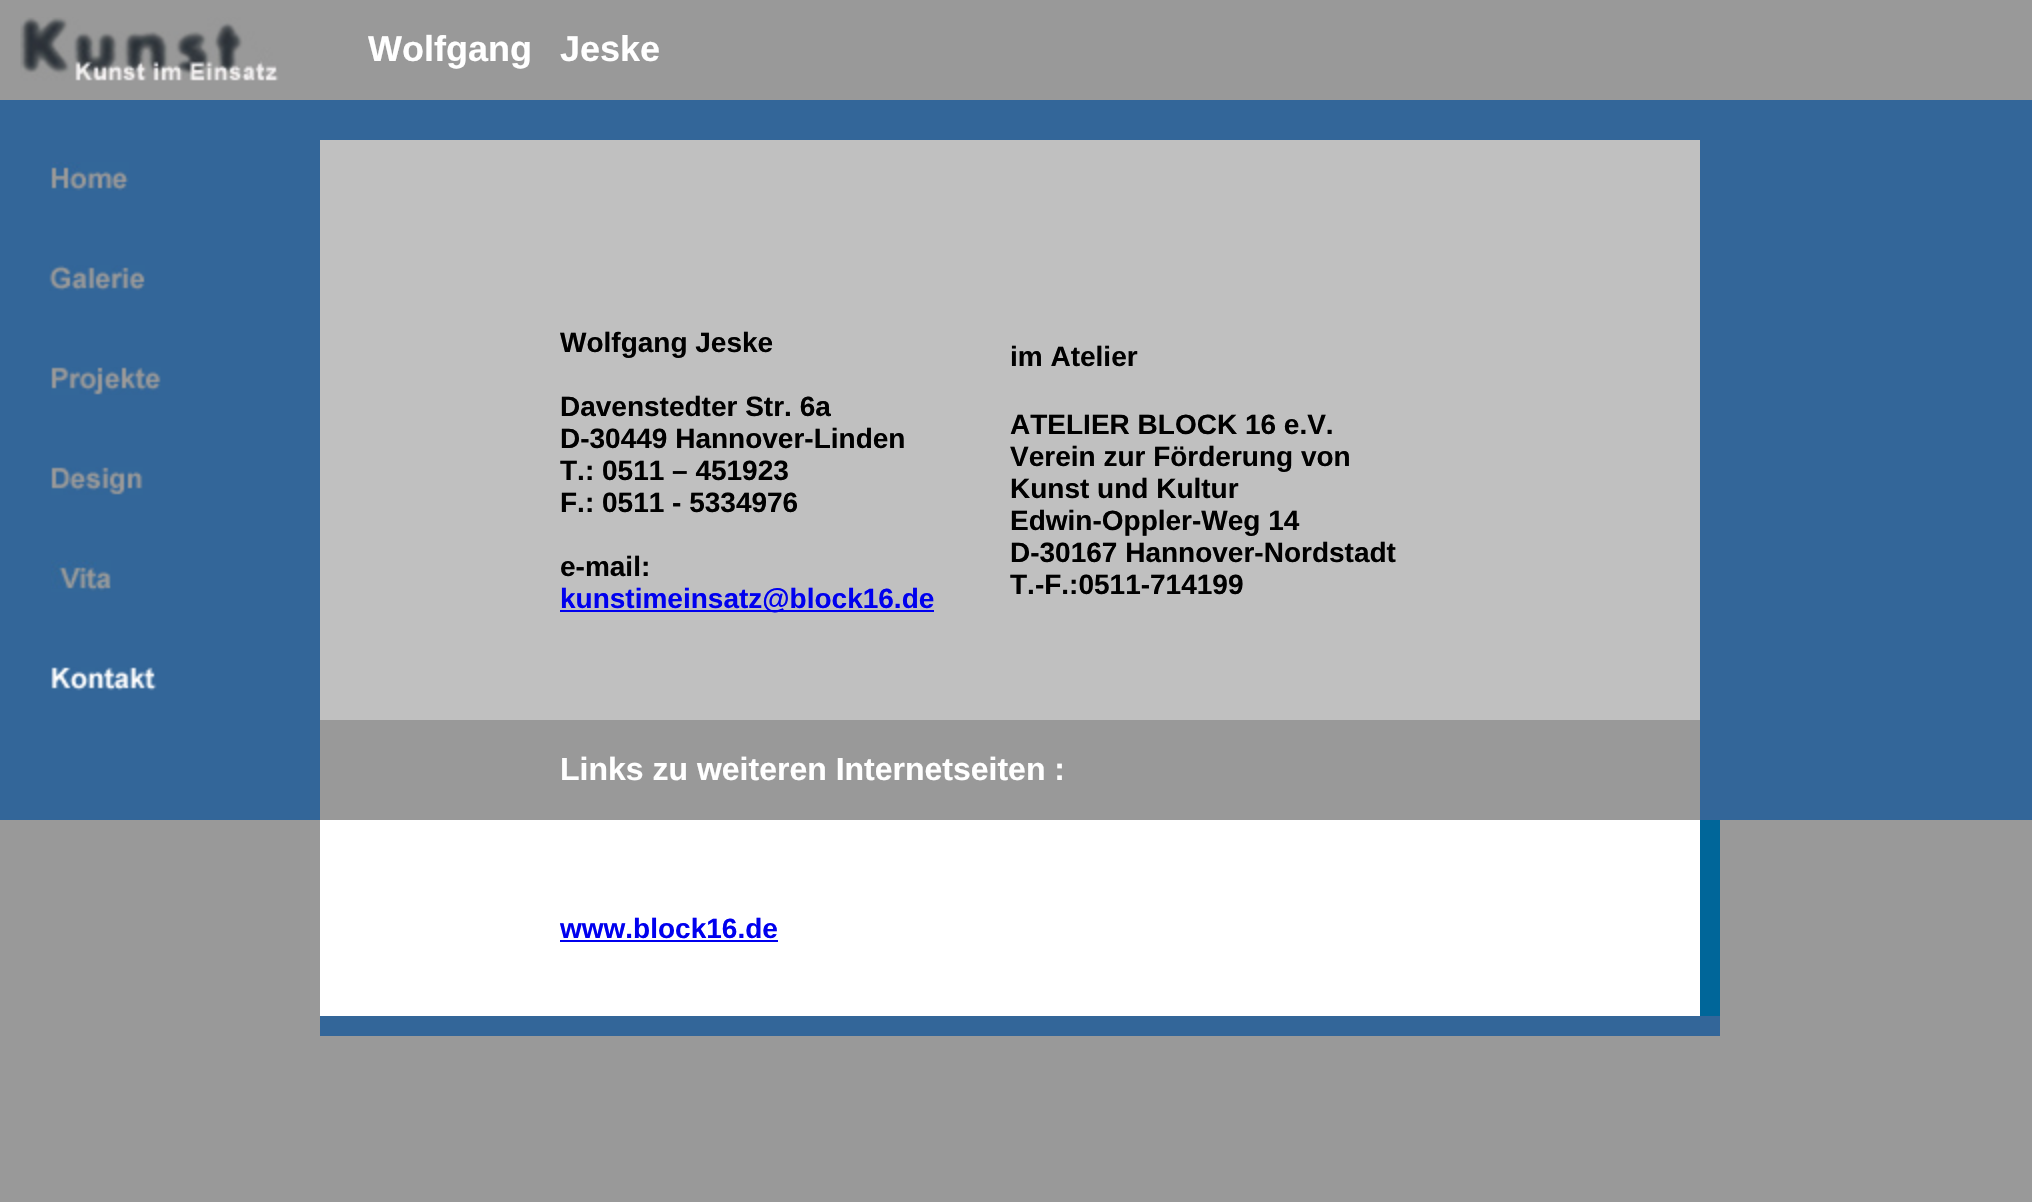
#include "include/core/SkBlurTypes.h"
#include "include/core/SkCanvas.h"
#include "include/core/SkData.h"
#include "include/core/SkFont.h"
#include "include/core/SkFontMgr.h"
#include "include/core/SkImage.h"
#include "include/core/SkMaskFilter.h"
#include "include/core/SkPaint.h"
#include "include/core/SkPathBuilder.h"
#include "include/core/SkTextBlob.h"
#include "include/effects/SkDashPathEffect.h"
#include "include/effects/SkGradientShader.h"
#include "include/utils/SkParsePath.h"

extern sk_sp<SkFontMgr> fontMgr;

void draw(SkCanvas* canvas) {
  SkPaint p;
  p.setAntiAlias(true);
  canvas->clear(SkColorSetRGB(153, 153, 153));
  canvas->drawImageRect(SkImages::DeferredFromEncodedData(SkData::MakeFromFileName("images/1.png")), SkRect::MakeLTRB(20, 17, 279, 81), SkSamplingOptions());
  p.setColor(SkColorSetRGB(51, 102, 153));
  canvas->drawRect(SkRect::MakeLTRB(0, 100, 2032, 140), p);
  canvas->drawRect(SkRect::MakeLTRB(0, 140, 320, 720), p);
  canvas->drawImageRect(SkImages::DeferredFromEncodedData(SkData::MakeFromFileName("images/2.png")), SkRect::MakeLTRB(51, 162, 129, 191), SkSamplingOptions());
  canvas->drawImageRect(SkImages::DeferredFromEncodedData(SkData::MakeFromFileName("images/3.png")), SkRect::MakeLTRB(49, 265, 145, 291), SkSamplingOptions());
  canvas->drawImageRect(SkImages::DeferredFromEncodedData(SkData::MakeFromFileName("images/4.png")), SkRect::MakeLTRB(51, 367, 161, 395), SkSamplingOptions());
  canvas->drawImageRect(SkImages::DeferredFromEncodedData(SkData::MakeFromFileName("images/5.png")), SkRect::MakeLTRB(51, 467, 143, 495), SkSamplingOptions());
  canvas->drawImageRect(SkImages::DeferredFromEncodedData(SkData::MakeFromFileName("images/6.png")), SkRect::MakeLTRB(51, 560, 111, 592), SkSamplingOptions());
  canvas->drawImageRect(SkImages::DeferredFromEncodedData(SkData::MakeFromFileName("images/7.png")), SkRect::MakeLTRB(51, 667, 157, 691), SkSamplingOptions());
  p.setColor(SkColorSetRGB(192, 192, 192));
  canvas->drawRect(SkRect::MakeLTRB(320, 140, 1700, 720), p);
  p.setColor(SkColorSetRGB(0, 0, 238));
  canvas->drawRect(SkRect::MakeLTRB(560, 610, 934, 612), p);
  p.setColor(SkColorSetRGB(51, 102, 153));
  canvas->drawRect(SkRect::MakeLTRB(1700, 140, 2032, 820), p);
  canvas->drawRect(SkRect::MakeLTRB(0, 720, 320, 820), p);
  p.setColor(SK_ColorWHITE);
  canvas->drawRect(SkRect::MakeLTRB(320, 820, 1700, 840), p);
  p.setColor(SkColorSetRGB(0, 102, 153));
  canvas->drawRect(SkRect::MakeLTRB(1700, 820, 1720, 1016), p);
  p.setColor(SK_ColorWHITE);
  canvas->drawRect(SkRect::MakeLTRB(320, 840, 1700, 1016), p);
  p.setColor(SkColorSetRGB(0, 0, 238));
  canvas->drawRect(SkRect::MakeLTRB(560, 940, 778, 942), p);
  p.setColor(SkColorSetRGB(51, 102, 153));
  canvas->drawRect(SkRect::MakeLTRB(320, 1016, 1720, 1036), p);
  SkFont font1(fontMgr->matchFamilyStyle("Liberation Sans", SkFontStyle::Bold()), 36);
  font1.setSubpixel(true);
  p.setColor(SK_ColorWHITE);
  canvas->drawString("Wolfgang", 368, 61, font1, p);
  canvas->drawString("Jeske", 560, 61, font1, p);
  SkFont font2(fontMgr->matchFamilyStyle("Liberation Sans", SkFontStyle::Bold()), 28);
  font2.setSubpixel(true);
  p.setColor(SK_ColorBLACK);
  canvas->drawString("Wolfgang Jeske", 560, 352, font2, p);
  canvas->drawString("Davenstedter Str. 6a", 560, 416, font2, p);
  canvas->drawString("D-30449 Hannover-Linden", 560, 448, font2, p);
  canvas->drawString("T.: 0511 – 451923", 560, 480, font2, p);
  canvas->drawString("F.: 0511 - 5334976", 560, 512, font2, p);
  canvas->drawString("e-mail:", 560, 576, font2, p);
  p.setColor(SkColorSetRGB(0, 0, 238));
  canvas->drawString("kunstimeinsatz@block16.de", 560, 608, font2, p);
  p.setColor(SK_ColorBLACK);
  canvas->drawString("im Atelier", 1010, 366, font2, p);
  canvas->drawString("ATELIER BLOCK 16 e.V.", 1010, 434, font2, p);
  canvas->drawString("Verein zur Förderung von", 1010, 466, font2, p);
  canvas->drawString("Kunst und Kultur", 1010, 498, font2, p);
  canvas->drawString("Edwin-Oppler-Weg 14", 1010, 530, font2, p);
  canvas->drawString("D-30167 Hannover-Nordstadt", 1010, 562, font2, p);
  canvas->drawString("T.-F.:0511-714199", 1010, 594, font2, p);
  SkFont font3(fontMgr->matchFamilyStyle("Liberation Sans", SkFontStyle::Bold()), 32);
  font3.setSubpixel(true);
  p.setColor(SK_ColorWHITE);
  canvas->drawString("Links zu weiteren Internetseiten :", 560, 780, font3, p);
  p.setColor(SkColorSetRGB(0, 0, 238));
  canvas->drawString("www.block16.de", 560, 938, font2, p);
}
